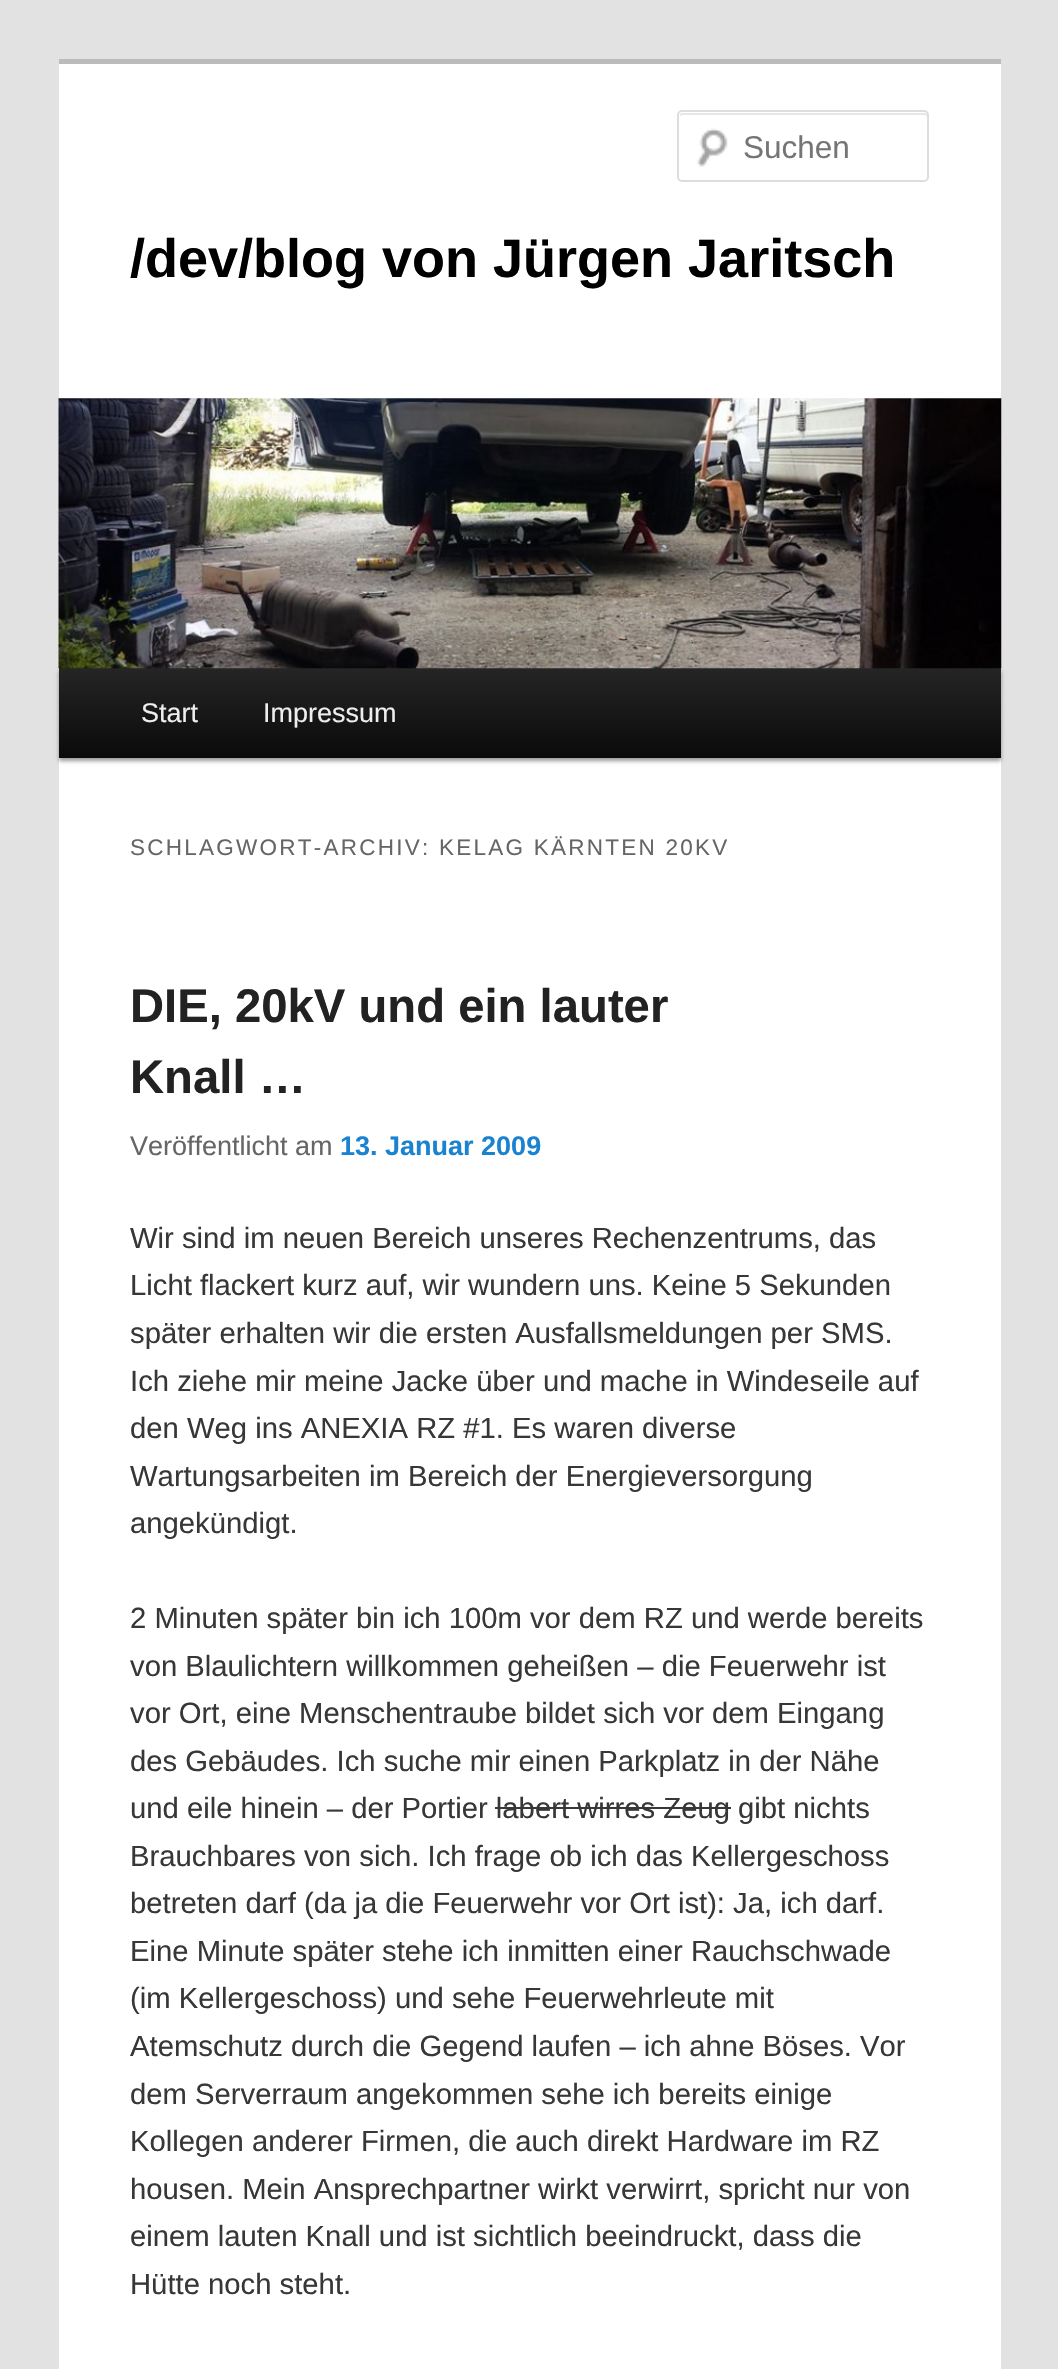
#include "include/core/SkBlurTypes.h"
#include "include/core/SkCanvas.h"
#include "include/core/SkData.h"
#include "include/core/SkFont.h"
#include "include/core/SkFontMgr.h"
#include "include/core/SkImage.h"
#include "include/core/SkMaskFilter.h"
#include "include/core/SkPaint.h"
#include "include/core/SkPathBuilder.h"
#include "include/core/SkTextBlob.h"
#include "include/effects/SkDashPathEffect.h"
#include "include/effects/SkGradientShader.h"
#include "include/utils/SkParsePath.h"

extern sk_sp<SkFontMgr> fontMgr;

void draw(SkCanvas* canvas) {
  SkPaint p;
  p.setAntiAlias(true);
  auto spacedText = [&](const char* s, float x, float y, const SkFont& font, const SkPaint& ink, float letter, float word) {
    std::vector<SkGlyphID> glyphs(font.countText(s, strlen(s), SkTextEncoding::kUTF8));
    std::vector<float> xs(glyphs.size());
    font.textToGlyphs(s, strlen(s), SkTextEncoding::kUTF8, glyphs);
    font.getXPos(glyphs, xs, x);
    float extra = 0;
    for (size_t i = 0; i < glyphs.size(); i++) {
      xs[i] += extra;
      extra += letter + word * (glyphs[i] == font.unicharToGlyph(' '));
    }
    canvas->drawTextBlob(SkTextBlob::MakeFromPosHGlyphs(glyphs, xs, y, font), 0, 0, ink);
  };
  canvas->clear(SkColorSetRGB(226, 226, 226));
  p.setColor(SK_ColorWHITE);
  canvas->drawRect(SkRect::MakeLTRB(59, 64, 1001, 2369), p);
  p.setColor(SkColorSetRGB(187, 187, 187));
  canvas->drawRect(SkRect::MakeLTRB(59, 59, 1001, 64), p);
  canvas->drawImageRect(SkImages::DeferredFromEncodedData(SkData::MakeFromFileName("images/1.png")), SkRect::MakeLTRB(697, 128, 728, 167), SkSamplingOptions());
  p.setColor(SkColorSetRGB(230, 230, 230));
  canvas->drawPath(SkPathBuilder().moveTo(682, 115).lineTo(925, 115).cubicTo(926, 115, 927, 116, 927, 117).cubicTo(927, 115, 927, 113, 925, 113).lineTo(682, 113).cubicTo(680, 113, 680, 115, 680, 117).cubicTo(680, 116, 681, 115, 682, 115).close().detach(), p);
  p.setStyle(SkPaint::kStroke_Style);
  p.setStrokeWidth(2);
  p.setColor(SkColorSetRGB(221, 221, 221));
  canvas->drawRoundRect(SkRect::MakeLTRB(678, 111, 928, 181), 4, 4, p);
  p.setStyle(SkPaint::kFill_Style);
  p.setColor(SkColorSetARGB(102, 0, 0, 0));
  p.setMaskFilter(SkMaskFilter::MakeBlur(kNormal_SkBlurStyle, 2));
  canvas->drawRect(SkRect::MakeLTRB(59, 671, 1001, 761), p);
  p.setMaskFilter(nullptr);
  {
    const SkColor colors[] = {SkColorSetRGB(37, 37, 37), SkColorSetRGB(10, 10, 10)};
    const float stops[] = {0, 1};
    const SkPoint ends[] = {{530, 668}, {530, 758}};
    p.setShader(SkGradientShader::MakeLinear(ends, colors, stops, 2, SkTileMode::kClamp));
    p.setAlpha(255);
  }
  canvas->drawRect(SkRect::MakeLTRB(59, 668, 1001, 758), p);
  canvas->drawImageRect(SkImages::DeferredFromEncodedData(SkData::MakeFromFileName("images/2.png")), SkRect::MakeLTRB(58, 398, 1002, 669), SkSamplingOptions());
  p.setShader(nullptr);
  p.setColor(SkColorSetRGB(55, 55, 55));
  canvas->drawRect(SkRect::MakeLTRB(495, 1807, 731, 1809), p);
  SkFont font1(fontMgr->matchFamilyStyle("Liberation Sans", SkFontStyle::Normal()), 31.5f);
  font1.setSubpixel(true);
  p.setColor(SkColorSetRGB(117, 117, 117));
  canvas->drawString("Suchen", 743, 158, font1, p);
  SkFont font2(fontMgr->matchFamilyStyle("Liberation Sans", SkFontStyle::Bold()), 54);
  font2.setSubpixel(true);
  p.setColor(SK_ColorBLACK);
  canvas->drawString("/dev/blog von Jürgen Jaritsch", 130, 277, font2, p);
  SkFont font3(fontMgr->matchFamilyStyle("Liberation Sans", SkFontStyle::Normal()), 27);
  font3.setSubpixel(true);
  p.setColor(SkColorSetRGB(238, 238, 238));
  canvas->drawString("Start", 141, 722, font3, p);
  canvas->drawString("Impressum", 263, 722, font3, p);
  SkFont font4(fontMgr->matchFamilyStyle("Liberation Sans", SkFontStyle::Normal()), 22.5f);
  font4.setSubpixel(true);
  p.setColor(SkColorSetRGB(102, 102, 102));
  spacedText("SCHLAGWORT-ARCHIV: KELAG KÄRNTEN 20KV", 130, 855, font4, p, 2.25f, 0);
  SkFont font5(fontMgr->matchFamilyStyle("Liberation Sans", SkFontStyle::Bold()), 47.25f);
  font5.setSubpixel(true);
  p.setColor(SkColorSetRGB(34, 34, 34));
  canvas->drawString("DIE, 20kV und ein lauter", 130, 1022, font5, p);
  canvas->drawString("Knall …", 130, 1093, font5, p);
  p.setColor(SkColorSetRGB(102, 102, 102));
  canvas->drawString("Veröffentlicht am", 130, 1155, font3, p);
  SkFont font6(fontMgr->matchFamilyStyle("Liberation Sans", SkFontStyle::Bold()), 27);
  font6.setSubpixel(true);
  p.setColor(SkColorSetRGB(25, 130, 209));
  canvas->drawString("13. Januar 2009", 340, 1155, font6, p);
  SkFont font7(fontMgr->matchFamilyStyle("Liberation Sans", SkFontStyle::Normal()), 29.25f);
  font7.setSubpixel(true);
  p.setColor(SkColorSetRGB(55, 55, 55));
  canvas->drawString("Wir sind im neuen Bereich unseres Rechenzentrums, das", 130, 1248, font7, p);
  canvas->drawString("Licht flackert kurz auf, wir wundern uns. Keine 5 Sekunden", 130, 1295, font7, p);
  canvas->drawString("später erhalten wir die ersten Ausfallsmeldungen per SMS.", 130, 1343, font7, p);
  canvas->drawString("Ich ziehe mir meine Jacke über und mache in Windeseile auf", 130, 1391, font7, p);
  canvas->drawString("den Weg ins ANEXIA RZ #1. Es waren diverse", 130, 1438, font7, p);
  canvas->drawString("Wartungsarbeiten im Bereich der Energieversorgung", 130, 1486, font7, p);
  canvas->drawString("angekündigt.", 130, 1533, font7, p);
  canvas->drawString("2 Minuten später bin ich 100m vor dem RZ und werde bereits", 130, 1628, font7, p);
  canvas->drawString("von Blaulichtern willkommen geheißen – die Feuerwehr ist", 130, 1676, font7, p);
  canvas->drawString("vor Ort, eine Menschentraube bildet sich vor dem Eingang", 130, 1723, font7, p);
  canvas->drawString("des Gebäudes. Ich suche mir einen Parkplatz in der Nähe", 130, 1771, font7, p);
  canvas->drawString("und eile hinein – der Portier labert wirres Zeug gibt nichts", 130, 1818, font7, p);
  canvas->drawString("Brauchbares von sich. Ich frage ob ich das Kellergeschoss", 130, 1866, font7, p);
  canvas->drawString("betreten darf (da ja die Feuerwehr vor Ort ist): Ja, ich darf.", 130, 1913, font7, p);
  canvas->drawString("Eine Minute später stehe ich inmitten einer Rauchschwade", 130, 1961, font7, p);
  canvas->drawString("(im Kellergeschoss) und sehe Feuerwehrleute mit", 130, 2008, font7, p);
  canvas->drawString("Atemschutz durch die Gegend laufen – ich ahne Böses. Vor", 130, 2056, font7, p);
  canvas->drawString("dem Serverraum angekommen sehe ich bereits einige", 130, 2104, font7, p);
  canvas->drawString("Kollegen anderer Firmen, die auch direkt Hardware im RZ", 130, 2151, font7, p);
  canvas->drawString("housen. Mein Ansprechpartner wirkt verwirrt, spricht nur von", 130, 2199, font7, p);
  canvas->drawString("einem lauten Knall und ist sichtlich beeindruckt, dass die", 130, 2246, font7, p);
  canvas->drawString("Hütte noch steht.", 130, 2294, font7, p);
}
